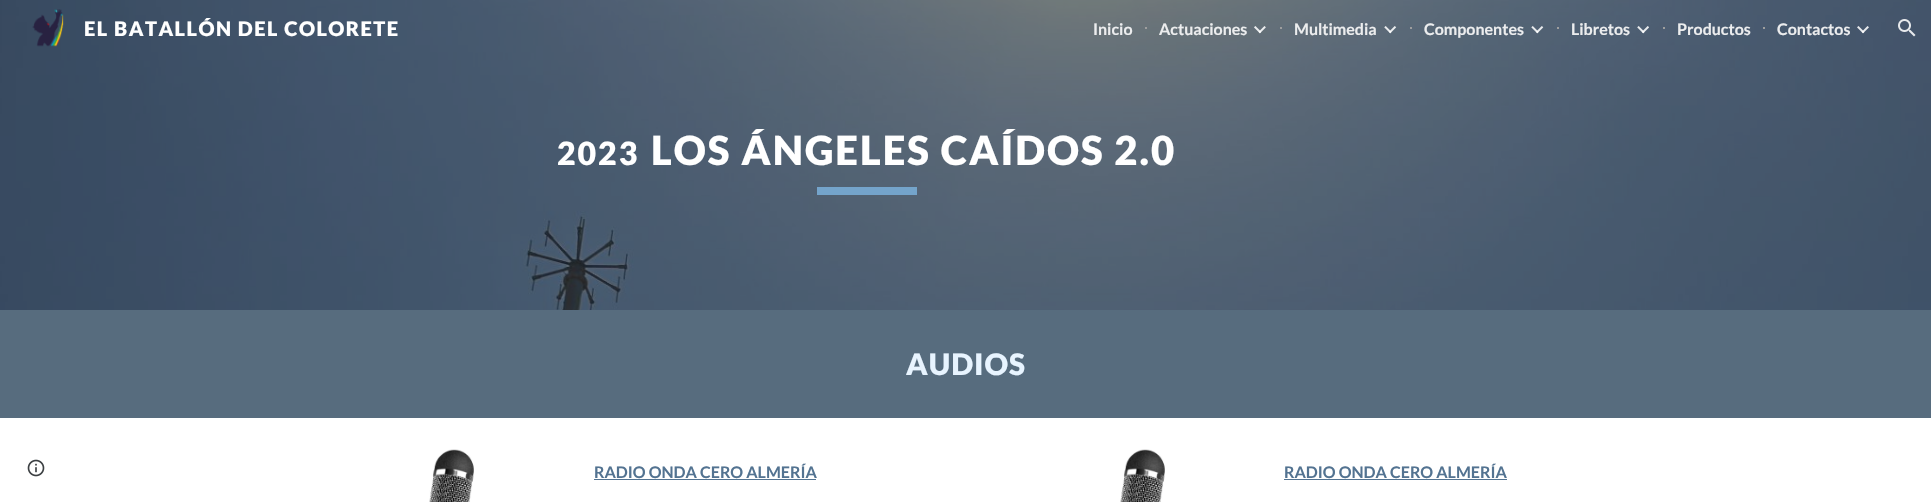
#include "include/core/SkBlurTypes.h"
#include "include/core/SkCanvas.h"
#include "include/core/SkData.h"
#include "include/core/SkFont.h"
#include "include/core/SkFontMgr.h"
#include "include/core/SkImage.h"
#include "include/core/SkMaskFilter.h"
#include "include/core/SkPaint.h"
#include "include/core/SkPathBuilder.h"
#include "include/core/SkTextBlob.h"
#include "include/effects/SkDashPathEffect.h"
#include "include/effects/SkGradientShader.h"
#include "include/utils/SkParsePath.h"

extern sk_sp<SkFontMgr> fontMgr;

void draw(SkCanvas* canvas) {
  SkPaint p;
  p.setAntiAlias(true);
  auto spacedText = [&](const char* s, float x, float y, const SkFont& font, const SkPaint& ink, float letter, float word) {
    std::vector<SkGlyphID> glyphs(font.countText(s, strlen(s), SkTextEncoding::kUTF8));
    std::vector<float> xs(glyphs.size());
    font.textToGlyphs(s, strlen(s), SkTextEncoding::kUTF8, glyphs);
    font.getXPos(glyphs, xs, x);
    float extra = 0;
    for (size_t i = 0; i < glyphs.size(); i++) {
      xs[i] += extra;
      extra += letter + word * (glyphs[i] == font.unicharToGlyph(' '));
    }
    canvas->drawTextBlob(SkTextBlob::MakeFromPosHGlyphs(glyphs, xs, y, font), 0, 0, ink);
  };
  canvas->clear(SK_ColorWHITE);
  canvas->drawImageRect(SkImages::DeferredFromEncodedData(SkData::MakeFromFileName("images/9.png")), SkRect::MakeLTRB(0, 0, 1931, 310), SkSamplingOptions());
  canvas->drawImageRect(SkImages::DeferredFromEncodedData(SkData::MakeFromFileName("images/1.png")), SkRect::MakeLTRB(32, 9, 64, 47), SkSamplingOptions());
  p.setColor(SkColorSetRGB(158, 158, 158));
  canvas->drawRect(SkRect::MakeLTRB(1145, 27, 1147, 29), p);
  canvas->drawImageRect(SkImages::DeferredFromEncodedData(SkData::MakeFromFileName("images/2.png")), SkRect::MakeLTRB(1254, 26, 1266, 34), SkSamplingOptions());
  canvas->drawRect(SkRect::MakeLTRB(1280, 27, 1282, 29), p);
  canvas->drawImageRect(SkImages::DeferredFromEncodedData(SkData::MakeFromFileName("images/3.png")), SkRect::MakeLTRB(1384, 26, 1397, 34), SkSamplingOptions());
  canvas->drawRect(SkRect::MakeLTRB(1410, 27, 1412, 29), p);
  canvas->drawImageRect(SkImages::DeferredFromEncodedData(SkData::MakeFromFileName("images/4.png")), SkRect::MakeLTRB(1531, 26, 1544, 34), SkSamplingOptions());
  canvas->drawRect(SkRect::MakeLTRB(1557, 27, 1559, 29), p);
  canvas->drawImageRect(SkImages::DeferredFromEncodedData(SkData::MakeFromFileName("images/5.png")), SkRect::MakeLTRB(1637, 26, 1649, 34), SkSamplingOptions());
  canvas->drawRect(SkRect::MakeLTRB(1663, 27, 1665, 29), p);
  canvas->drawRect(SkRect::MakeLTRB(1763, 27, 1765, 29), p);
  canvas->drawImageRect(SkImages::DeferredFromEncodedData(SkData::MakeFromFileName("images/6.png")), SkRect::MakeLTRB(1857, 26, 1869, 34), SkSamplingOptions());
  canvas->drawImageRect(SkImages::DeferredFromEncodedData(SkData::MakeFromFileName("images/7.png")), SkRect::MakeLTRB(1898, 19, 1916, 37), SkSamplingOptions());
  canvas->drawImageRect(SkImages::DeferredFromEncodedData(SkData::MakeFromFileName("images/8.png")), SkRect::MakeLTRB(27, 459, 45, 477), SkSamplingOptions());
  p.setColor(SkColorSetRGB(116, 164, 203));
  canvas->drawRect(SkRect::MakeLTRB(817, 187, 917, 195), p);
  p.setColor(SkColorSetRGB(87, 108, 126));
  canvas->drawRect(SkRect::MakeLTRB(0, 310, 1931, 418), p);
  canvas->drawImageRect(SkImages::DeferredFromEncodedData(SkData::MakeFromFileName("images/10.png")), SkRect::MakeLTRB(429, 449, 474, 502), SkSamplingOptions());
  p.setColor(SkColorSetRGB(83, 115, 145));
  canvas->drawRect(SkRect::MakeLTRB(594, 479, 816, 480), p);
  canvas->drawImageRect(SkImages::DeferredFromEncodedData(SkData::MakeFromFileName("images/11.png")), SkRect::MakeLTRB(1120, 449, 1165, 502), SkSamplingOptions());
  canvas->drawRect(SkRect::MakeLTRB(1284, 479, 1507, 480), p);
  SkFont font1(fontMgr->matchFamilyStyle("Lato", SkFontStyle(900, SkFontStyle::kNormal_Width, SkFontStyle::kUpright_Slant)), 20);
  font1.setSubpixel(true);
  p.setColor(SK_ColorWHITE);
  spacedText("EL BATALLÓN DEL COLORETE", 84, 36, font1, p, 1.5f, 0);
  SkFont font2(fontMgr->matchFamilyStyle("Lato", SkFontStyle::Bold()), 16);
  font2.setSubpixel(true);
  p.setColor(SkColorSetRGB(236, 237, 238));
  canvas->drawString("Inicio", 1093, 35, font2, p);
  canvas->drawString("Actuaciones", 1159, 35, font2, p);
  canvas->drawString("Multimedia", 1294, 35, font2, p);
  canvas->drawString("Componentes", 1424, 35, font2, p);
  canvas->drawString("Libretos", 1571, 35, font2, p);
  canvas->drawString("Productos", 1677, 35, font2, p);
  canvas->drawString("Contactos", 1777, 35, font2, p);
  SkFont font3(fontMgr->matchFamilyStyle("Lato", SkFontStyle(900, SkFontStyle::kNormal_Width, SkFontStyle::kUpright_Slant)), 32);
  font3.setSubpixel(true);
  p.setColor(SK_ColorWHITE);
  spacedText("2023", 557, 165, font3, p, 2, 0);
  SkFont font4(fontMgr->matchFamilyStyle("Lato", SkFontStyle(900, SkFontStyle::kNormal_Width, SkFontStyle::kUpright_Slant)), 40);
  font4.setSubpixel(true);
  spacedText("LOS ÁNGELES CAÍDOS 2.0", 651, 165, font4, p, 2, 0);
  SkFont font5(fontMgr->matchFamilyStyle("Lato", SkFontStyle(900, SkFontStyle::kNormal_Width, SkFontStyle::kUpright_Slant)), 29.5f);
  font5.setSubpixel(true);
  p.setColor(SkColorSetRGB(232, 244, 255));
  spacedText("AUDIOS", 906, 375, font5, p, 1, 0);
  p.setColor(SkColorSetRGB(83, 115, 145));
  canvas->drawString("RADIO ONDA CERO ALMERÍA", 594, 478, font2, p);
  canvas->drawString("RADIO ONDA CERO ALMERÍA", 1284, 478, font2, p);
}
